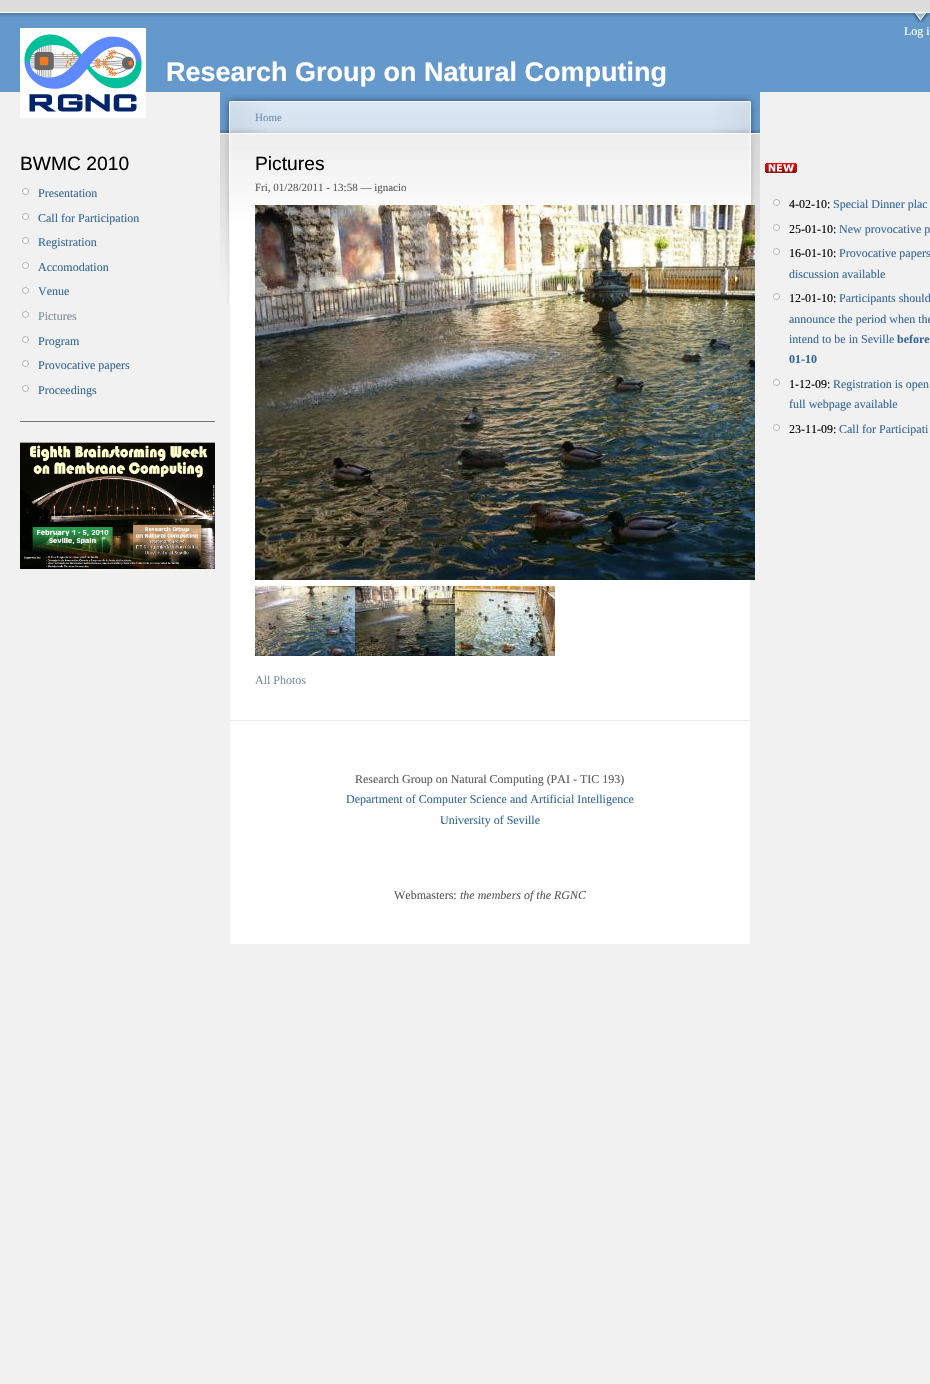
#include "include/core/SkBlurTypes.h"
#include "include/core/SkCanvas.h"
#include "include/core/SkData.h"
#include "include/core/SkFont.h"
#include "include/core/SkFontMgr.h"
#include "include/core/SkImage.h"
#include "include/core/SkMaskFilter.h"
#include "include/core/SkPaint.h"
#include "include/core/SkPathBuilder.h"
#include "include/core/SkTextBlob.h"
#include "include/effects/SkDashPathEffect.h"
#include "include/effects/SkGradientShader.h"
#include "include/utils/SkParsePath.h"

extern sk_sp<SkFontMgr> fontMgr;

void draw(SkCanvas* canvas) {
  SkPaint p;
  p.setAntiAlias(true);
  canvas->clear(SkColorSetRGB(241, 241, 241));
  p.setColor(SkColorSetRGB(221, 220, 220));
  canvas->drawRect(SkRect::MakeLTRB(0, 0, 930, 12), p);
  canvas->drawImageRect(SkImages::DeferredFromEncodedData(SkData::MakeFromFileName("images/1.png")), SkRect::MakeLTRB(0, 12, 930, 92), SkSamplingOptions());
  canvas->drawImageRect(SkImages::DeferredFromEncodedData(SkData::MakeFromFileName("images/2.png")), SkRect::MakeLTRB(912, 13, 929, 23), SkSamplingOptions());
  canvas->drawImageRect(SkImages::DeferredFromEncodedData(SkData::MakeFromFileName("images/3.png")), SkRect::MakeLTRB(20, 28, 146, 118), SkSamplingOptions());
  canvas->drawImageRect(SkImages::DeferredFromEncodedData(SkData::MakeFromFileName("images/4.png")), SkRect::MakeLTRB(22, 188, 29, 195), SkSamplingOptions());
  canvas->drawImageRect(SkImages::DeferredFromEncodedData(SkData::MakeFromFileName("images/4.png")), SkRect::MakeLTRB(22, 213, 29, 220), SkSamplingOptions());
  canvas->drawImageRect(SkImages::DeferredFromEncodedData(SkData::MakeFromFileName("images/4.png")), SkRect::MakeLTRB(22, 237, 29, 244), SkSamplingOptions());
  canvas->drawImageRect(SkImages::DeferredFromEncodedData(SkData::MakeFromFileName("images/4.png")), SkRect::MakeLTRB(22, 262, 29, 269), SkSamplingOptions());
  canvas->drawImageRect(SkImages::DeferredFromEncodedData(SkData::MakeFromFileName("images/4.png")), SkRect::MakeLTRB(22, 287, 29, 294), SkSamplingOptions());
  canvas->drawImageRect(SkImages::DeferredFromEncodedData(SkData::MakeFromFileName("images/4.png")), SkRect::MakeLTRB(22, 311, 29, 318), SkSamplingOptions());
  canvas->drawImageRect(SkImages::DeferredFromEncodedData(SkData::MakeFromFileName("images/4.png")), SkRect::MakeLTRB(22, 336, 29, 343), SkSamplingOptions());
  canvas->drawImageRect(SkImages::DeferredFromEncodedData(SkData::MakeFromFileName("images/4.png")), SkRect::MakeLTRB(22, 360, 29, 367), SkSamplingOptions());
  canvas->drawImageRect(SkImages::DeferredFromEncodedData(SkData::MakeFromFileName("images/4.png")), SkRect::MakeLTRB(22, 385, 29, 392), SkSamplingOptions());
  p.setColor(SkColorSetRGB(116, 116, 116));
  canvas->drawRect(SkRect::MakeLTRB(20, 421, 215, 422), p);
  canvas->drawImageRect(SkImages::DeferredFromEncodedData(SkData::MakeFromFileName("images/5.png")), SkRect::MakeLTRB(20, 442, 215, 569), SkSamplingOptions());
  p.setColor(SK_ColorWHITE);
  canvas->drawRect(SkRect::MakeLTRB(230, 204, 750, 944), p);
  canvas->drawImageRect(SkImages::DeferredFromEncodedData(SkData::MakeFromFileName("images/6.png")), SkRect::MakeLTRB(267, 92, 712, 204), SkSamplingOptions());
  canvas->drawImageRect(SkImages::DeferredFromEncodedData(SkData::MakeFromFileName("images/7.png")), SkRect::MakeLTRB(712, 92, 760, 314), SkSamplingOptions());
  canvas->drawImageRect(SkImages::DeferredFromEncodedData(SkData::MakeFromFileName("images/8.png")), SkRect::MakeLTRB(220, 92, 267, 304), SkSamplingOptions());
  p.setColor(SkColorSetRGB(235, 235, 235));
  canvas->drawRect(SkRect::MakeLTRB(229, 720, 751, 721), p);
  canvas->drawImageRect(SkImages::DeferredFromEncodedData(SkData::MakeFromFileName("images/9.png")), SkRect::MakeLTRB(255, 205, 755, 580), SkSamplingOptions());
  canvas->drawImageRect(SkImages::DeferredFromEncodedData(SkData::MakeFromFileName("images/10.png")), SkRect::MakeLTRB(255, 586, 355, 656), SkSamplingOptions());
  canvas->drawImageRect(SkImages::DeferredFromEncodedData(SkData::MakeFromFileName("images/11.png")), SkRect::MakeLTRB(355, 586, 455, 656), SkSamplingOptions());
  canvas->drawImageRect(SkImages::DeferredFromEncodedData(SkData::MakeFromFileName("images/12.png")), SkRect::MakeLTRB(455, 586, 555, 656), SkSamplingOptions());
  canvas->drawImageRect(SkImages::DeferredFromEncodedData(SkData::MakeFromFileName("images/13.png")), SkRect::MakeLTRB(765, 163, 797, 173), SkSamplingOptions());
  canvas->drawImageRect(SkImages::DeferredFromEncodedData(SkData::MakeFromFileName("images/4.png")), SkRect::MakeLTRB(773, 199, 780, 206), SkSamplingOptions());
  canvas->drawImageRect(SkImages::DeferredFromEncodedData(SkData::MakeFromFileName("images/4.png")), SkRect::MakeLTRB(773, 224, 780, 231), SkSamplingOptions());
  canvas->drawImageRect(SkImages::DeferredFromEncodedData(SkData::MakeFromFileName("images/4.png")), SkRect::MakeLTRB(773, 248, 780, 255), SkSamplingOptions());
  canvas->drawImageRect(SkImages::DeferredFromEncodedData(SkData::MakeFromFileName("images/4.png")), SkRect::MakeLTRB(773, 293, 780, 300), SkSamplingOptions());
  canvas->drawImageRect(SkImages::DeferredFromEncodedData(SkData::MakeFromFileName("images/4.png")), SkRect::MakeLTRB(773, 379, 780, 386), SkSamplingOptions());
  canvas->drawImageRect(SkImages::DeferredFromEncodedData(SkData::MakeFromFileName("images/4.png")), SkRect::MakeLTRB(773, 424, 780, 431), SkSamplingOptions());
  SkFont font1(fontMgr->matchFamilyStyle("Liberation Serif", SkFontStyle::Normal()), 12);
  font1.setSubpixel(true);
  p.setColor(SK_ColorWHITE);
  canvas->drawString("Log i", 904, 35, font1, p);
  SkFont font2(fontMgr->matchFamilyStyle("Liberation Sans", SkFontStyle::Bold()), 27);
  font2.setSubpixel(true);
  canvas->drawString("Research Group on Natural Computing", 166, 81, font2, p);
  SkFont font3(fontMgr->matchFamilyStyle("Liberation Sans", SkFontStyle::Normal()), 19.25f);
  font3.setSubpixel(true);
  p.setColor(SK_ColorBLACK);
  canvas->drawString("BWMC 2010", 20, 170, font3, p);
  p.setColor(SkColorSetRGB(51, 102, 153));
  canvas->drawString("Presentation", 38, 197, font1, p);
  canvas->drawString("Call for Participation", 38, 222, font1, p);
  canvas->drawString("Registration", 38, 246, font1, p);
  canvas->drawString("Accomodation", 38, 271, font1, p);
  canvas->drawString("Venue", 38, 295, font1, p);
  p.setColor(SkColorSetRGB(124, 139, 156));
  canvas->drawString("Pictures", 38, 320, font1, p);
  p.setColor(SkColorSetRGB(51, 102, 153));
  canvas->drawString("Program", 38, 345, font1, p);
  canvas->drawString("Provocative papers", 38, 369, font1, p);
  canvas->drawString("Proceedings", 38, 394, font1, p);
  SkFont font4(fontMgr->matchFamilyStyle("Liberation Serif", SkFontStyle::Normal()), 11);
  font4.setSubpixel(true);
  p.setColor(SkColorSetRGB(115, 144, 182));
  canvas->drawString("Home", 255, 121, font4, p);
  p.setColor(SK_ColorBLACK);
  canvas->drawString("Pictures", 255, 170, font3, p);
  p.setColor(SkColorSetRGB(89, 89, 89));
  canvas->drawString("Fri, 01/28/2011 - 13:58 — ignacio", 255, 191, font4, p);
  p.setColor(SkColorSetRGB(124, 139, 156));
  canvas->drawString("All Photos", 255, 684, font1, p);
  p.setColor(SkColorSetRGB(89, 89, 89));
  canvas->drawString("Research Group on Natural Computing (PAI - TIC 193)", 355, 783, font1, p);
  p.setColor(SkColorSetRGB(51, 102, 153));
  canvas->drawString("Department of Computer Science and Artificial Intelligence", 346, 803, font1, p);
  canvas->drawString("University of Seville", 440, 824, font1, p);
  p.setColor(SkColorSetRGB(89, 89, 89));
  canvas->drawString("Webmasters:", 394, 899, font1, p);
  SkFont font5(fontMgr->matchFamilyStyle("Liberation Serif", SkFontStyle::Italic()), 12);
  font5.setSubpixel(true);
  canvas->drawString("the members of the RGNC", 460, 899, font5, p);
  p.setColor(SK_ColorBLACK);
  canvas->drawString("4-02-10:", 789, 208, font1, p);
  p.setColor(SkColorSetRGB(51, 102, 153));
  canvas->drawString("Special Dinner plac", 833, 208, font1, p);
  p.setColor(SK_ColorBLACK);
  canvas->drawString("25-01-10:", 789, 233, font1, p);
  p.setColor(SkColorSetRGB(51, 102, 153));
  canvas->drawString("New provocative p", 839, 233, font1, p);
  p.setColor(SK_ColorBLACK);
  canvas->drawString("16-01-10:", 789, 257, font1, p);
  p.setColor(SkColorSetRGB(51, 102, 153));
  canvas->drawString("Provocative papers", 839, 257, font1, p);
  canvas->drawString("discussion available", 789, 278, font1, p);
  p.setColor(SK_ColorBLACK);
  canvas->drawString("12-01-10:", 789, 302, font1, p);
  p.setColor(SkColorSetRGB(51, 102, 153));
  canvas->drawString("Participants should", 839, 302, font1, p);
  canvas->drawString("announce the period when the", 789, 323, font1, p);
  canvas->drawString("intend to be in Seville", 789, 343, font1, p);
  SkFont font6(fontMgr->matchFamilyStyle("Liberation Serif", SkFontStyle::Bold()), 12);
  font6.setSubpixel(true);
  canvas->drawString("before", 897, 343, font6, p);
  canvas->drawString("01-10", 789, 363, font6, p);
  p.setColor(SK_ColorBLACK);
  canvas->drawString("1-12-09:", 789, 388, font1, p);
  p.setColor(SkColorSetRGB(51, 102, 153));
  canvas->drawString("Registration is open", 833, 388, font1, p);
  canvas->drawString("full webpage available", 789, 408, font1, p);
  p.setColor(SK_ColorBLACK);
  canvas->drawString("23-11-09:", 789, 433, font1, p);
  p.setColor(SkColorSetRGB(51, 102, 153));
  canvas->drawString("Call for Participati", 839, 433, font1, p);
}
